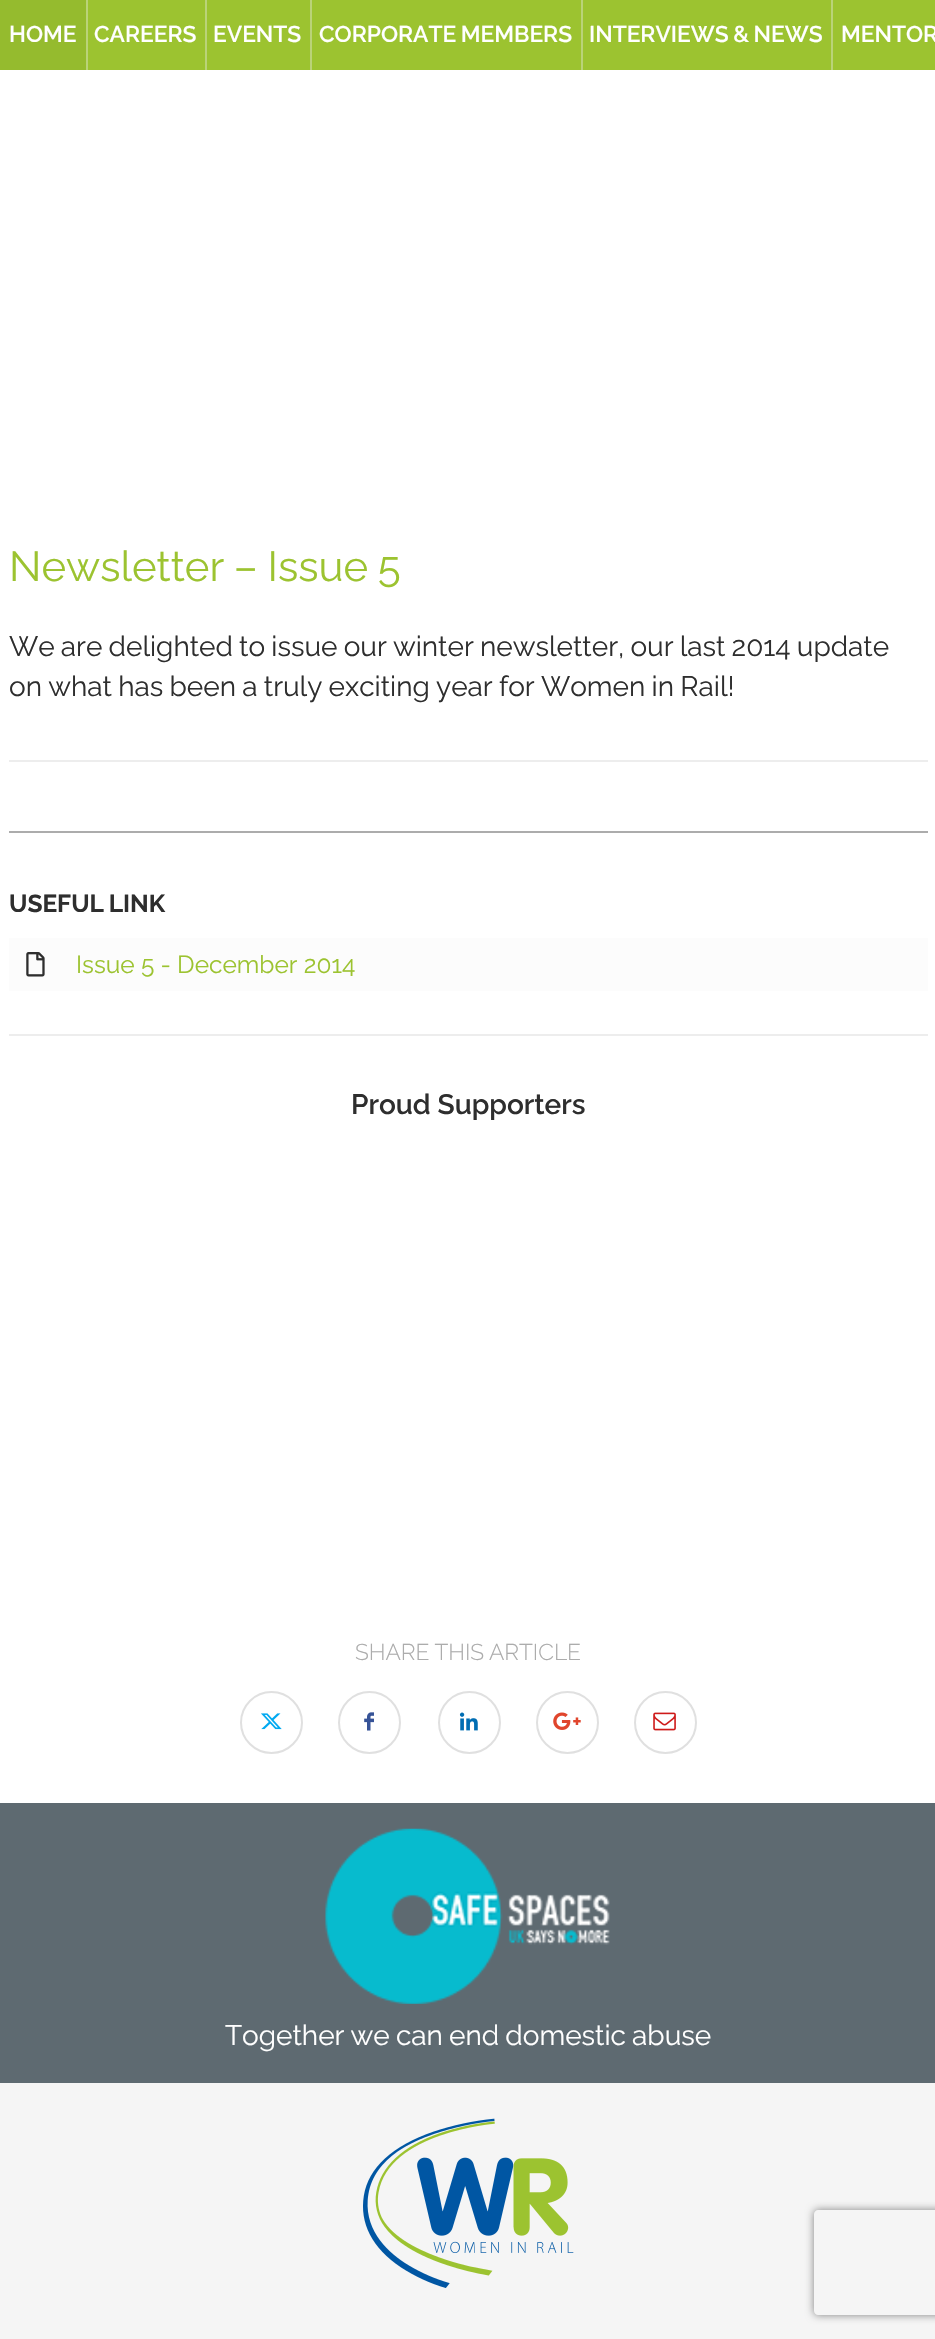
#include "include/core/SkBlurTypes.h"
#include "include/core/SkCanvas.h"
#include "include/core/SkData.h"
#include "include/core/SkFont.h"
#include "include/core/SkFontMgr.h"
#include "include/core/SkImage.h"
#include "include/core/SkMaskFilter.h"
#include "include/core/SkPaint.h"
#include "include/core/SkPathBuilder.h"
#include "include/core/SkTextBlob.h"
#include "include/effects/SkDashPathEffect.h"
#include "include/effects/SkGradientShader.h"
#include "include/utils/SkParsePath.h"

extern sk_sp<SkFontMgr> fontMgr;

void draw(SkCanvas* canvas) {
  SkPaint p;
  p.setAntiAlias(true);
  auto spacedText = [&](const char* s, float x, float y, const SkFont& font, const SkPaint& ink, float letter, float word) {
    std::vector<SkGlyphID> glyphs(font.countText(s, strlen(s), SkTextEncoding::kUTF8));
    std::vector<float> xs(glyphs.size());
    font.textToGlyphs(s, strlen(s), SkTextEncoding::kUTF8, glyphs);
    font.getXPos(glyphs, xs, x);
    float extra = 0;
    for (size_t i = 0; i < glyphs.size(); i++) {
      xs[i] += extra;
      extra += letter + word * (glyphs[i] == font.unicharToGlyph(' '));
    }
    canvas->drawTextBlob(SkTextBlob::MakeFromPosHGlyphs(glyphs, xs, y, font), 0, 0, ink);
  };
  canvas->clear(SK_ColorWHITE);
  p.setColor(SkColorSetRGB(156, 195, 48));
  canvas->drawRect(SkRect::MakeLTRB(88, 0, 935, 70), p);
  p.setColor(SkColorSetRGB(149, 187, 46));
  canvas->drawRect(SkRect::MakeLTRB(0, 0, 86, 70), p);
  p.setColor(SkColorSetRGB(186, 211, 120));
  canvas->drawRect(SkRect::MakeLTRB(86, 0, 88, 70), p);
  canvas->drawRect(SkRect::MakeLTRB(205, 0, 207, 70), p);
  canvas->drawRect(SkRect::MakeLTRB(310, 0, 312, 70), p);
  canvas->drawRect(SkRect::MakeLTRB(581, 0, 583, 70), p);
  canvas->drawRect(SkRect::MakeLTRB(831, 0, 833, 70), p);
  p.setColor(SkColorSetRGB(237, 237, 237));
  canvas->drawRect(SkRect::MakeLTRB(9, 760, 928, 762), p);
  p.setColor(SkColorSetRGB(172, 172, 172));
  canvas->drawRect(SkRect::MakeLTRB(9, 831, 928, 833), p);
  p.setColor(SkColorSetRGB(237, 237, 237));
  canvas->drawRect(SkRect::MakeLTRB(9, 1034, 928, 1036), p);
  p.setColor(SkColorSetRGB(252, 252, 252));
  canvas->drawRect(SkRect::MakeLTRB(9, 938, 928, 991), p);
  canvas->drawImageRect(SkImages::DeferredFromEncodedData(SkData::MakeFromFileName("images/1.png")), SkRect::MakeLTRB(26, 952, 45, 977), SkSamplingOptions());
  p.setStyle(SkPaint::kStroke_Style);
  p.setStrokeWidth(2);
  p.setColor(SkColorSetRGB(224, 224, 224));
  canvas->drawCircle(271.5f, 1722.5f, 30.5f, p);
  canvas->drawImageRect(SkImages::DeferredFromEncodedData(SkData::MakeFromFileName("images/2.png")), SkRect::MakeLTRB(261, 1713, 282, 1730), SkSamplingOptions());
  canvas->drawCircle(369.5f, 1722.5f, 30.5f, p);
  canvas->drawImageRect(SkImages::DeferredFromEncodedData(SkData::MakeFromFileName("images/3.png")), SkRect::MakeLTRB(364, 1712, 374, 1731), SkSamplingOptions());
  canvas->drawCircle(469.5f, 1722.5f, 30.5f, p);
  canvas->drawImageRect(SkImages::DeferredFromEncodedData(SkData::MakeFromFileName("images/4.png")), SkRect::MakeLTRB(459, 1712, 478, 1731), SkSamplingOptions());
  canvas->drawCircle(567.5f, 1722.5f, 30.5f, p);
  canvas->drawImageRect(SkImages::DeferredFromEncodedData(SkData::MakeFromFileName("images/5.png")), SkRect::MakeLTRB(553, 1712, 581, 1730), SkSamplingOptions());
  canvas->drawCircle(665.5f, 1722.5f, 30.5f, p);
  canvas->drawImageRect(SkImages::DeferredFromEncodedData(SkData::MakeFromFileName("images/6.png")), SkRect::MakeLTRB(653, 1712, 676, 1731), SkSamplingOptions());
  p.setStyle(SkPaint::kFill_Style);
  p.setColor(SkColorSetRGB(94, 106, 113));
  canvas->drawRect(SkRect::MakeLTRB(0, 1803, 935, 2083), p);
  canvas->drawImageRect(SkImages::DeferredFromEncodedData(SkData::MakeFromFileName("images/7.png")), SkRect::MakeLTRB(325, 1828, 610, 2004), SkSamplingOptions());
  p.setColor(SkColorSetRGB(245, 245, 245));
  canvas->drawRect(SkRect::MakeLTRB(0, 2083, 935, 2339), p);
  canvas->drawImageRect(SkImages::DeferredFromEncodedData(SkData::MakeFromFileName("images/8.png")), SkRect::MakeLTRB(363, 2118, 574, 2288), SkSamplingOptions());
  canvas->save();
  canvas->clipPath(SkPathBuilder(SkPathFillType::kEvenOdd).moveTo(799, 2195).lineTo(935, 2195).lineTo(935, 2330).lineTo(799, 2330).close().moveTo(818, 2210).lineTo(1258, 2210).cubicTo(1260, 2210, 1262, 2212, 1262, 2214).lineTo(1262, 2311).cubicTo(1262, 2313, 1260, 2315, 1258, 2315).lineTo(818, 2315).cubicTo(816, 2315, 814, 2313, 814, 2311).lineTo(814, 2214).cubicTo(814, 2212, 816, 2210, 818, 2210).close().detach(), true);
  p.setColor(SkColorSetRGB(128, 128, 128));
  p.setMaskFilter(SkMaskFilter::MakeBlur(kNormal_SkBlurStyle, 4.5f));
  canvas->drawRoundRect(SkRect::MakeLTRB(814, 2210, 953, 2315), 4, 4, p);
  p.setMaskFilter(nullptr);
  canvas->restore();
  SkFont font1(fontMgr->matchFamilyStyle("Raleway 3", SkFontStyle(100, SkFontStyle::kNormal_Width, SkFontStyle::kUpright_Slant)), 22.75f);
  font1.setSubpixel(true);
  p.setColor(SK_ColorWHITE);
  canvas->drawString("HOME", 9, 42, font1, p);
  canvas->drawString("CAREERS", 94, 42, font1, p);
  canvas->drawString("EVENTS", 213, 42, font1, p);
  spacedText("CORPORATE MEMBERS", 319, 42, font1, p, 0, -1);
  spacedText("INTERVIEWS & NEWS", 589, 42, font1, p, 0, -1);
  canvas->drawString("MENTOR", 841, 42, font1, p);
  SkFont font2(fontMgr->matchFamilyStyle("Raleway", SkFontStyle(100, SkFontStyle::kNormal_Width, SkFontStyle::kUpright_Slant)), 42);
  font2.setSubpixel(true);
  p.setColor(SkColorSetRGB(156, 195, 48));
  spacedText("Newsletter – Issue 5", 9, 581, font2, p, 0, -1);
  SkFont font3(fontMgr->matchFamilyStyle("Raleway", SkFontStyle(100, SkFontStyle::kNormal_Width, SkFontStyle::kUpright_Slant)), 28);
  font3.setSubpixel(true);
  p.setColor(SkColorSetRGB(46, 46, 46));
  spacedText("We are delighted to issue our winter newsletter, our last 2014 update", 9, 656, font3, p, 0, -1);
  spacedText("on what has been a truly exciting year for Women in Rail!", 9, 696, font3, p, 0, -0.9f);
  SkFont font4(fontMgr->matchFamilyStyle("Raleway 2", SkFontStyle(100, SkFontStyle::kNormal_Width, SkFontStyle::kUpright_Slant)), 24.5f);
  font4.setSubpixel(true);
  spacedText("USEFUL LINK", 9, 912, font4, p, 0, -1);
  SkFont font5(fontMgr->matchFamilyStyle("Raleway", SkFontStyle(100, SkFontStyle::kNormal_Width, SkFontStyle::kUpright_Slant)), 24.5f);
  font5.setSubpixel(true);
  p.setColor(SkColorSetRGB(156, 195, 48));
  canvas->drawString("Issue 5 - December 2014", 76, 973, font5, p);
  SkFont font6(fontMgr->matchFamilyStyle("Raleway 3", SkFontStyle(100, SkFontStyle::kNormal_Width, SkFontStyle::kUpright_Slant)), 28);
  font6.setSubpixel(true);
  p.setColor(SkColorSetRGB(46, 46, 46));
  canvas->drawString("Proud Supporters", 351, 1114, font6, p);
  SkFont font7(fontMgr->matchFamilyStyle("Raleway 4", SkFontStyle(100, SkFontStyle::kNormal_Width, SkFontStyle::kUpright_Slant)), 22.75f);
  font7.setSubpixel(true);
  p.setColor(SkColorSetRGB(172, 172, 172));
  spacedText("SHARE THIS ARTICLE", 355, 1660, font7, p, 0, -1);
  p.setColor(SK_ColorWHITE);
  spacedText("Together we can end domestic abuse", 225, 2045, font3, p, 0, -1);
}
